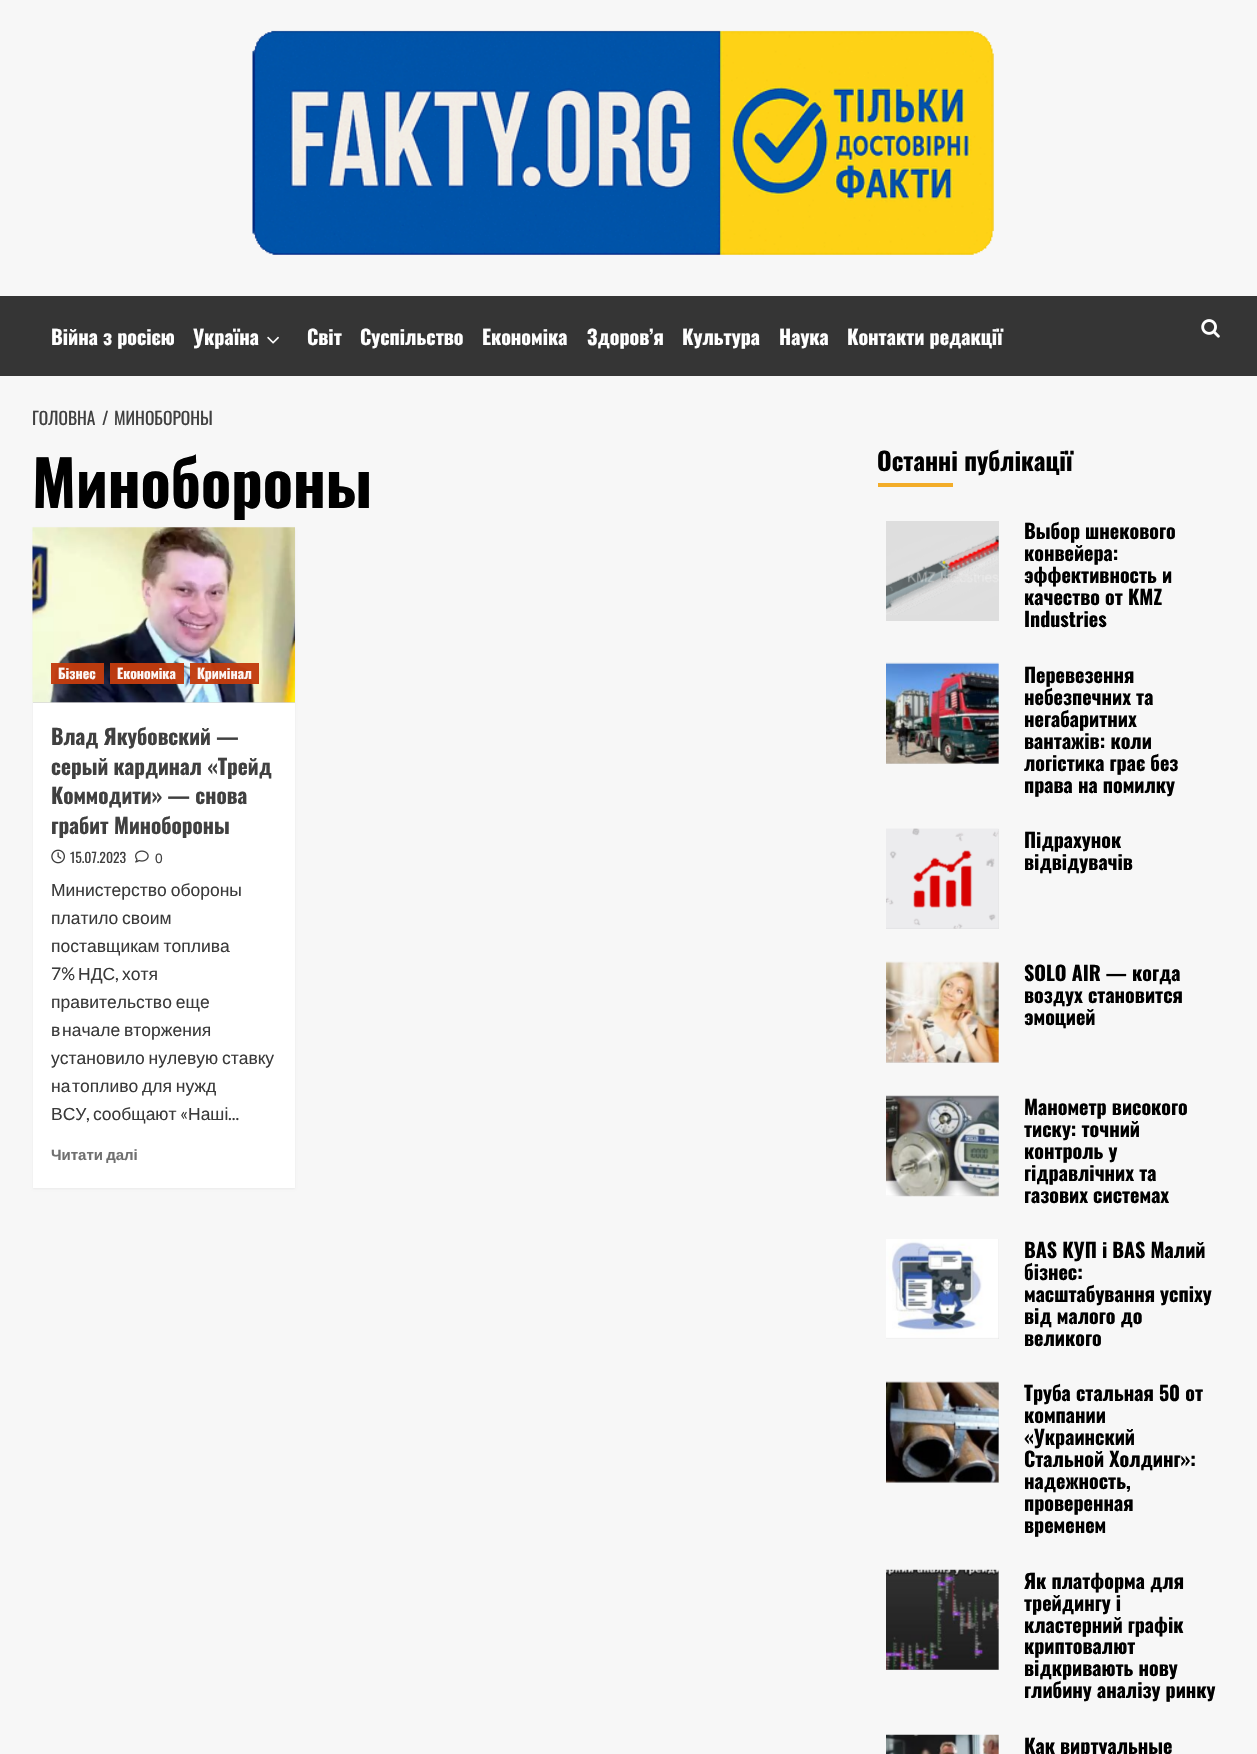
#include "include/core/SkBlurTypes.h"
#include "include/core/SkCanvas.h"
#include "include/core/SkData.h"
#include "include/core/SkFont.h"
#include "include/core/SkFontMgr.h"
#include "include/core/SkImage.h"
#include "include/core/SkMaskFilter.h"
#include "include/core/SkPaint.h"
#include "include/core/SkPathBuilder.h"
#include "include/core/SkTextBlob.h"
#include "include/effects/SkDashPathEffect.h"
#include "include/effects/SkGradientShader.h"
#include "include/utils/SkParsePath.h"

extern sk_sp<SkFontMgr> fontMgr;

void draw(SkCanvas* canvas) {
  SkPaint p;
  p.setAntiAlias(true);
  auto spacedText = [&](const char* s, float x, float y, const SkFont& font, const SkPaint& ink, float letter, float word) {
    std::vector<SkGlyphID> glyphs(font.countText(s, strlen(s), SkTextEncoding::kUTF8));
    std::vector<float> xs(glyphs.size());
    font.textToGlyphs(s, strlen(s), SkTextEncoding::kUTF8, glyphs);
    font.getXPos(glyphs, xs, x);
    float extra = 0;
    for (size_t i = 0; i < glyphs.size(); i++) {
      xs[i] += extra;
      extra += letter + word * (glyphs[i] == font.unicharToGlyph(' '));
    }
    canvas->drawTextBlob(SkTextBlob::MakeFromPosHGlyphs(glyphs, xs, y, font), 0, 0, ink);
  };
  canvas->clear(SkColorSetRGB(247, 247, 247));
  canvas->drawImageRect(SkImages::DeferredFromEncodedData(SkData::MakeFromFileName("images/1.png")), SkRect::MakeLTRB(252, 30, 994, 255), SkSamplingOptions());
  p.setColor(SkColorSetRGB(53, 53, 53));
  canvas->drawRect(SkRect::MakeLTRB(0, 296, 1257, 376), p);
  canvas->drawImageRect(SkImages::DeferredFromEncodedData(SkData::MakeFromFileName("images/2.png")), SkRect::MakeLTRB(267, 336, 279, 344), SkSamplingOptions());
  canvas->drawImageRect(SkImages::DeferredFromEncodedData(SkData::MakeFromFileName("images/3.png")), SkRect::MakeLTRB(1201, 319, 1220, 338), SkSamplingOptions());
  p.setColor(SkColorSetARGB(13, 0, 0, 0));
  p.setMaskFilter(SkMaskFilter::MakeBlur(kNormal_SkBlurStyle, 1));
  canvas->drawRect(SkRect::MakeLTRB(33, 529, 295, 1189), p);
  p.setMaskFilter(nullptr);
  p.setColor(SK_ColorWHITE);
  canvas->drawRect(SkRect::MakeLTRB(33, 703, 295, 1188), p);
  p.setColor(SkColorSetRGB(216, 216, 216));
  canvas->drawRect(SkRect::MakeLTRB(33, 702, 295, 703), p);
  canvas->drawImageRect(SkImages::DeferredFromEncodedData(SkData::MakeFromFileName("images/4.png")), SkRect::MakeLTRB(32, 527, 295, 703), SkSamplingOptions());
  p.setColor(SkColorSetARGB(245, 194, 59, 14));
  canvas->drawRect(SkRect::MakeLTRB(51, 663, 104, 684), p);
  canvas->drawRect(SkRect::MakeLTRB(110, 663, 184, 684), p);
  canvas->drawRect(SkRect::MakeLTRB(190, 663, 259, 684), p);
  canvas->drawImageRect(SkImages::DeferredFromEncodedData(SkData::MakeFromFileName("images/5.png")), SkRect::MakeLTRB(51, 849, 65, 864), SkSamplingOptions());
  canvas->drawImageRect(SkImages::DeferredFromEncodedData(SkData::MakeFromFileName("images/6.png")), SkRect::MakeLTRB(135, 850, 149, 863), SkSamplingOptions());
  p.setColor(SkColorSetRGB(243, 173, 41));
  canvas->drawRect(SkRect::MakeLTRB(878, 483, 953, 487), p);
  p.setColor(SkColorSetRGB(222, 222, 222));
  canvas->drawRect(SkRect::MakeLTRB(886, 521, 999, 621), p);
  canvas->drawImageRect(SkImages::DeferredFromEncodedData(SkData::MakeFromFileName("images/7.png")), SkRect::MakeLTRB(886, 535, 999, 615), SkSamplingOptions());
  canvas->drawRect(SkRect::MakeLTRB(886, 664, 999, 764), p);
  canvas->drawImageRect(SkImages::DeferredFromEncodedData(SkData::MakeFromFileName("images/8.png")), SkRect::MakeLTRB(886, 662, 999, 764), SkSamplingOptions());
  canvas->drawRect(SkRect::MakeLTRB(886, 829, 999, 929), p);
  canvas->drawImageRect(SkImages::DeferredFromEncodedData(SkData::MakeFromFileName("images/9.png")), SkRect::MakeLTRB(886, 828, 999, 929), SkSamplingOptions());
  canvas->drawRect(SkRect::MakeLTRB(886, 963, 999, 1063), p);
  canvas->drawImageRect(SkImages::DeferredFromEncodedData(SkData::MakeFromFileName("images/10.png")), SkRect::MakeLTRB(886, 961, 999, 1063), SkSamplingOptions());
  canvas->drawRect(SkRect::MakeLTRB(886, 1096, 999, 1196), p);
  canvas->drawImageRect(SkImages::DeferredFromEncodedData(SkData::MakeFromFileName("images/11.png")), SkRect::MakeLTRB(886, 1095, 999, 1197), SkSamplingOptions());
  canvas->drawRect(SkRect::MakeLTRB(886, 1239, 999, 1339), p);
  canvas->drawImageRect(SkImages::DeferredFromEncodedData(SkData::MakeFromFileName("images/12.png")), SkRect::MakeLTRB(886, 1239, 999, 1339), SkSamplingOptions());
  canvas->drawRect(SkRect::MakeLTRB(886, 1383, 999, 1483), p);
  canvas->drawImageRect(SkImages::DeferredFromEncodedData(SkData::MakeFromFileName("images/13.png")), SkRect::MakeLTRB(886, 1381, 999, 1483), SkSamplingOptions());
  canvas->drawRect(SkRect::MakeLTRB(886, 1570, 999, 1670), p);
  canvas->drawImageRect(SkImages::DeferredFromEncodedData(SkData::MakeFromFileName("images/14.png")), SkRect::MakeLTRB(886, 1569, 999, 1670), SkSamplingOptions());
  canvas->drawRect(SkRect::MakeLTRB(998, 1735, 999, 1754), p);
  canvas->drawImageRect(SkImages::DeferredFromEncodedData(SkData::MakeFromFileName("images/15.png")), SkRect::MakeLTRB(886, 1734, 999, 1754), SkSamplingOptions());
  SkFont font1(fontMgr->matchFamilyStyle("Oswald", SkFontStyle::Bold()), 20);
  font1.setSubpixel(true);
  p.setColor(SK_ColorWHITE);
  canvas->drawString("Війна з росією", 51, 345, font1, p);
  canvas->drawString("Україна", 193, 345, font1, p);
  canvas->drawString("Світ", 307, 345, font1, p);
  canvas->drawString("Суспільство", 360, 345, font1, p);
  canvas->drawString("Економіка", 482, 345, font1, p);
  canvas->drawString("Здоров’я", 587, 345, font1, p);
  canvas->drawString("Культура", 682, 345, font1, p);
  canvas->drawString("Наука", 779, 345, font1, p);
  canvas->drawString("Контакти редакції", 847, 345, font1, p);
  SkFont font2(fontMgr->matchFamilyStyle("Oswald", SkFontStyle::Normal()), 17.5f);
  font2.setSubpixel(true);
  p.setColor(SkColorSetRGB(64, 64, 64));
  canvas->drawString("ГОЛОВНА", 32, 425, font2, p);
  canvas->drawString("/", 102, 425, font2, p);
  canvas->drawString("МИНОБОРОНЫ", 114, 425, font2, p);
  SkFont font3(fontMgr->matchFamilyStyle("Oswald", SkFontStyle::Bold()), 62.5f);
  font3.setSubpixel(true);
  p.setColor(SK_ColorBLACK);
  canvas->drawString("Минобороны", 32, 508, font3, p);
  SkFont font4(fontMgr->matchFamilyStyle("Oswald", SkFontStyle::Bold()), 13.75f);
  font4.setSubpixel(true);
  p.setColor(SkColorSetRGB(252, 247, 245));
  canvas->drawString("Бізнес", 58, 679, font4, p);
  canvas->drawString("Економіка", 117, 679, font4, p);
  canvas->drawString("Кримінал", 197, 679, font4, p);
  SkFont font5(fontMgr->matchFamilyStyle("Oswald", SkFontStyle::Bold()), 21.25f);
  font5.setSubpixel(true);
  p.setColor(SkColorSetRGB(64, 64, 64));
  canvas->drawString("Влад Якубовский —", 51, 745, font5, p);
  canvas->drawString("серый кардинал «Трейд", 51, 775, font5, p);
  canvas->drawString("Коммодити» — снова", 51, 804, font5, p);
  canvas->drawString("грабит Минобороны", 51, 834, font5, p);
  SkFont font6(fontMgr->matchFamilyStyle("Oswald", SkFontStyle::Normal()), 13.75f);
  font6.setSubpixel(true);
  canvas->drawString("15.07.2023", 70, 863, font6, p);
  SkFont font7(fontMgr->matchFamilyStyle("Liberation Sans", SkFontStyle::Normal()), 13.75f);
  font7.setSubpixel(true);
  canvas->drawString("0", 155, 863, font7, p);
  SkFont font8(fontMgr->matchFamilyStyle("Liberation Sans", SkFontStyle::Normal()), 17.5f);
  font8.setSubpixel(true);
  p.setColor(SkColorSetRGB(58, 58, 58));
  spacedText("Министерство обороны", 51, 896, font8, p, 0, -1);
  spacedText("платило своим", 51, 924, font8, p, 0, -1);
  spacedText("поставщикам топлива", 51, 952, font8, p, 0, -1);
  SkFont font9(fontMgr->matchFamilyStyle("Lato", SkFontStyle::Normal()), 17.5f);
  font9.setSubpixel(true);
  canvas->drawString("7%", 51, 980, font9, p);
  canvas->drawString("НДС", 78, 980, font8, p);
  canvas->drawString(",", 115, 980, font9, p);
  canvas->drawString("хотя", 122, 980, font8, p);
  spacedText("правительство еще", 51, 1008, font8, p, 0, -1);
  canvas->drawString("в", 51, 1036, font8, p);
  spacedText("начале вторжения", 62, 1036, font8, p, 0, -1);
  spacedText("установило нулевую ставку", 51, 1064, font8, p, 0, -1);
  canvas->drawString("на", 51, 1092, font8, p);
  spacedText("топливо для нужд", 72, 1092, font8, p, 0, -1);
  canvas->drawString("ВСУ", 51, 1120, font8, p);
  canvas->drawString("сообщают", 93, 1120, font8, p);
  canvas->drawString("«", 180, 1120, font9, p);
  canvas->drawString("Наші", 188, 1120, font8, p);
  canvas->drawString(",", 86, 1120, font9, p);
  canvas->drawString("...", 228, 1120, font9, p);
  SkFont font10(fontMgr->matchFamilyStyle("Liberation Sans", SkFontStyle::Bold()), 15);
  font10.setSubpixel(true);
  p.setColor(SkColorSetRGB(112, 112, 112));
  spacedText("Читати далі", 51, 1160, font10, p, 0, -1);
  SkFont font11(fontMgr->matchFamilyStyle("Oswald", SkFontStyle::Bold()), 25);
  font11.setSubpixel(true);
  p.setColor(SK_ColorBLACK);
  canvas->drawString("Останні публікації", 877, 471, font11, p);
  canvas->drawString("Выбор шнекового", 1024, 539, font1, p);
  canvas->drawString("конвейера:", 1024, 561, font1, p);
  canvas->drawString("эффективность и", 1024, 583, font1, p);
  canvas->drawString("качество от KMZ", 1024, 605, font1, p);
  canvas->drawString("Industries", 1024, 627, font1, p);
  canvas->drawString("Перевезення", 1024, 683, font1, p);
  canvas->drawString("небезпечних та", 1024, 705, font1, p);
  canvas->drawString("негабаритних", 1024, 727, font1, p);
  canvas->drawString("вантажів: коли", 1024, 749, font1, p);
  canvas->drawString("логістика грає без", 1024, 771, font1, p);
  canvas->drawString("права на помилку", 1024, 793, font1, p);
  canvas->drawString("Підрахунок", 1024, 848, font1, p);
  canvas->drawString("відвідувачів", 1024, 870, font1, p);
  canvas->drawString("SOLO AIR — когда", 1024, 981, font1, p);
  canvas->drawString("воздух становится", 1024, 1003, font1, p);
  canvas->drawString("эмоцией", 1024, 1025, font1, p);
  canvas->drawString("Манометр високого", 1024, 1115, font1, p);
  canvas->drawString("тиску: точний", 1024, 1137, font1, p);
  canvas->drawString("контроль у", 1024, 1159, font1, p);
  canvas->drawString("гідравлічних та", 1024, 1181, font1, p);
  canvas->drawString("газових системах", 1024, 1203, font1, p);
  canvas->drawString("BAS КУП і BAS Малий", 1024, 1258, font1, p);
  canvas->drawString("бізнес:", 1024, 1280, font1, p);
  canvas->drawString("масштабування успіху", 1024, 1302, font1, p);
  canvas->drawString("від малого до", 1024, 1324, font1, p);
  canvas->drawString("великого", 1024, 1346, font1, p);
  canvas->drawString("Труба стальная 50 от", 1024, 1401, font1, p);
  canvas->drawString("компании", 1024, 1423, font1, p);
  canvas->drawString("«Украинский", 1024, 1445, font1, p);
  canvas->drawString("Стальной Холдинг»:", 1024, 1467, font1, p);
  canvas->drawString("надежность,", 1024, 1489, font1, p);
  canvas->drawString("проверенная", 1024, 1511, font1, p);
  canvas->drawString("временем", 1024, 1533, font1, p);
  canvas->drawString("Як платформа для", 1024, 1589, font1, p);
  canvas->drawString("трейдингу і", 1024, 1611, font1, p);
  canvas->drawString("кластерний графік", 1024, 1633, font1, p);
  canvas->drawString("криптовалют", 1024, 1654, font1, p);
  canvas->drawString("відкривають нову", 1024, 1676, font1, p);
  canvas->drawString("глибину аналізу ринку", 1024, 1698, font1, p);
  canvas->drawString("Как виртуальные", 1024, 1754, font1, p);
}
